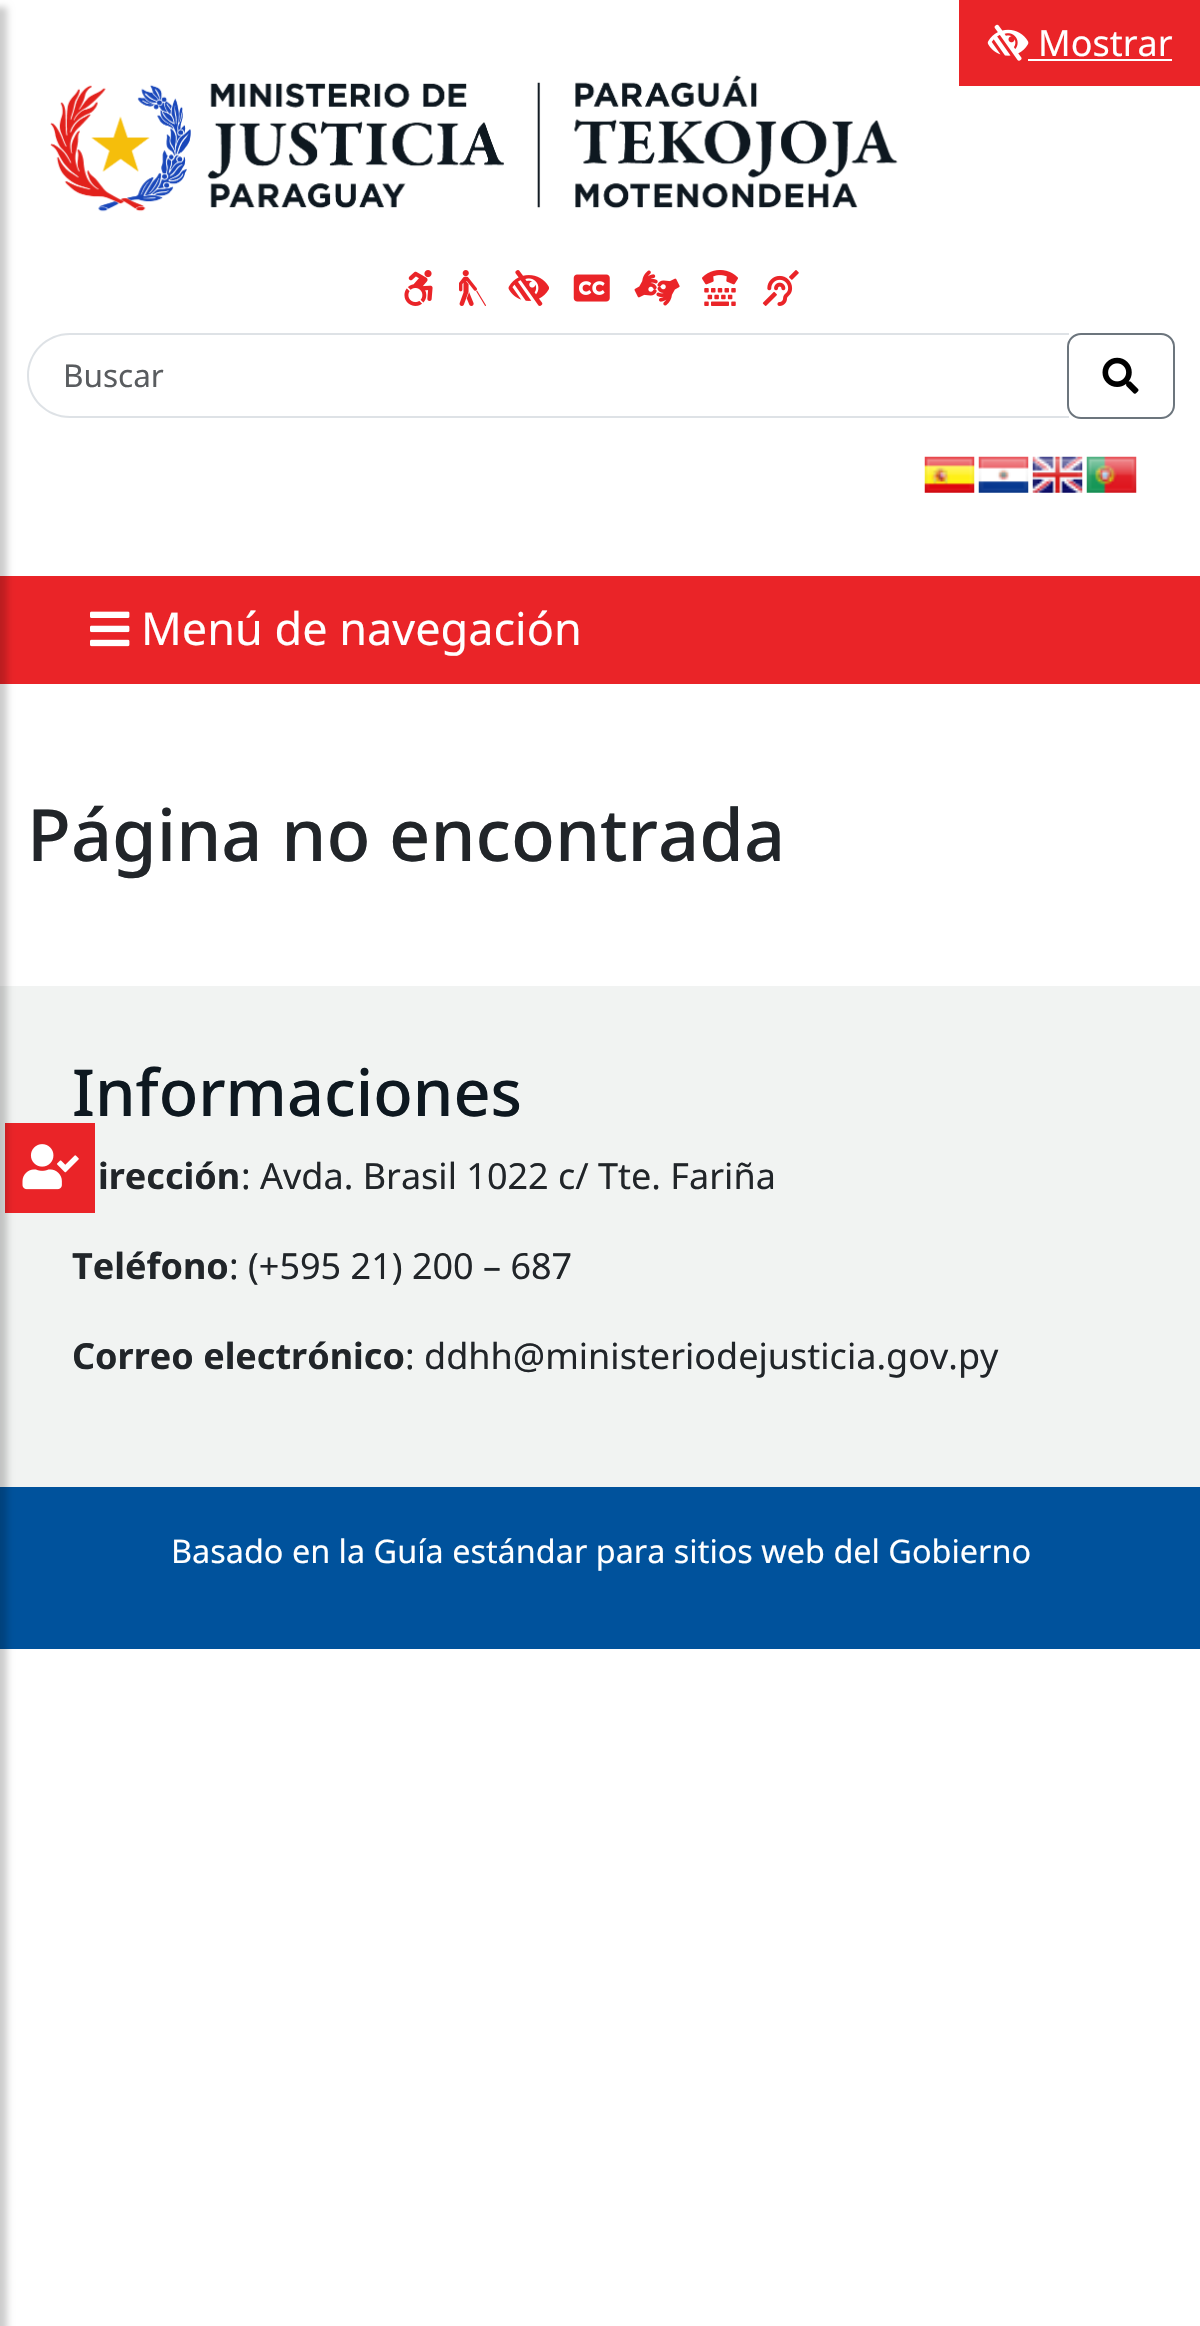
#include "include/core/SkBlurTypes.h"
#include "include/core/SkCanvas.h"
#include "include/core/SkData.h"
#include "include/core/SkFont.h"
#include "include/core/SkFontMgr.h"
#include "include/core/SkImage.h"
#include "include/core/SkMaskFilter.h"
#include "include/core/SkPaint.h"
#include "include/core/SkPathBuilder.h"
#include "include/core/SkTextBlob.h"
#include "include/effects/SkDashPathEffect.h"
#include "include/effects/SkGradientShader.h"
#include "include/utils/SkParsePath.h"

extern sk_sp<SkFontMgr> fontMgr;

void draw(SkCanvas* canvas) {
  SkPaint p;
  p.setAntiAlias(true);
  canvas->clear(SK_ColorWHITE);
  p.setColor(SkColorSetRGB(234, 36, 40));
  canvas->drawRect(SkRect::MakeLTRB(0, 576, 1200, 684), p);
  p.setColor(SkColorSetRGB(241, 243, 242));
  canvas->drawRect(SkRect::MakeLTRB(0, 986, 1200, 1487), p);
  p.setColor(SkColorSetRGB(234, 36, 40));
  canvas->drawRect(SkRect::MakeLTRB(5, 1123, 95, 1213), p);
  p.setColor(SkColorSetRGB(0, 82, 156));
  canvas->drawRect(SkRect::MakeLTRB(0, 1487, 1200, 1649), p);
  p.setColor(SkColorSetARGB(51, 0, 0, 0));
  p.setMaskFilter(SkMaskFilter::MakeBlur(kNormal_SkBlurStyle, 3.5f));
  canvas->drawRect(SkRect::MakeLTRB(-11, 7, 7, 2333), p);
  p.setMaskFilter(nullptr);
  p.setColor(SkColorSetRGB(234, 36, 40));
  canvas->drawRect(SkRect::MakeLTRB(959, 0, 1200, 86), p);
  canvas->drawImageRect(SkImages::DeferredFromEncodedData(SkData::MakeFromFileName("images/1.png")), SkRect::MakeLTRB(987, 24, 1029, 61), SkSamplingOptions());
  p.setColor(SK_ColorWHITE);
  canvas->drawRect(SkRect::MakeLTRB(1028, 59, 1172, 61), p);
  canvas->drawImageRect(SkImages::DeferredFromEncodedData(SkData::MakeFromFileName("images/2.png")), SkRect::MakeLTRB(50, 75, 898, 212), SkSamplingOptions());
  canvas->drawImageRect(SkImages::DeferredFromEncodedData(SkData::MakeFromFileName("images/3.png")), SkRect::MakeLTRB(404, 270, 433, 306), SkSamplingOptions());
  canvas->drawImageRect(SkImages::DeferredFromEncodedData(SkData::MakeFromFileName("images/4.png")), SkRect::MakeLTRB(459, 270, 486, 306), SkSamplingOptions());
  canvas->drawImageRect(SkImages::DeferredFromEncodedData(SkData::MakeFromFileName("images/5.png")), SkRect::MakeLTRB(508, 270, 549, 306), SkSamplingOptions());
  canvas->drawImageRect(SkImages::DeferredFromEncodedData(SkData::MakeFromFileName("images/6.png")), SkRect::MakeLTRB(573, 274, 610, 302), SkSamplingOptions());
  canvas->drawImageRect(SkImages::DeferredFromEncodedData(SkData::MakeFromFileName("images/7.png")), SkRect::MakeLTRB(634, 270, 680, 306), SkSamplingOptions());
  canvas->drawImageRect(SkImages::DeferredFromEncodedData(SkData::MakeFromFileName("images/8.png")), SkRect::MakeLTRB(702, 270, 738, 306), SkSamplingOptions());
  canvas->drawImageRect(SkImages::DeferredFromEncodedData(SkData::MakeFromFileName("images/9.png")), SkRect::MakeLTRB(762, 270, 799, 306), SkSamplingOptions());
  p.setColor(SkColorSetRGB(222, 226, 230));
  canvas->drawPath(SkPathBuilder(SkPathFillType::kEvenOdd).moveTo(70, 333).lineTo(1069, 333).lineTo(1069, 418).lineTo(70, 418).cubicTo(46, 418, 27, 399, 27, 376).cubicTo(27, 352, 46, 333, 70, 333).close().moveTo(70, 335).lineTo(1069, 335).lineTo(1069, 416).lineTo(70, 416).cubicTo(47, 416, 29, 398, 29, 376).cubicTo(29, 353, 47, 335, 70, 335).close().detach(), p);
  p.setStyle(SkPaint::kStroke_Style);
  p.setStrokeWidth(2);
  p.setColor(SkColorSetRGB(108, 117, 125));
  canvas->drawRoundRect(SkRect::MakeLTRB(1068, 334, 1174, 418), 13, 13, p);
  canvas->drawImageRect(SkImages::DeferredFromEncodedData(SkData::MakeFromFileName("images/10.png")), SkRect::MakeLTRB(1102, 357, 1139, 394), SkSamplingOptions());
  canvas->drawImageRect(SkImages::DeferredFromEncodedData(SkData::MakeFromFileName("images/11.png")), SkRect::MakeLTRB(924, 456, 975, 493), SkSamplingOptions());
  canvas->drawImageRect(SkImages::DeferredFromEncodedData(SkData::MakeFromFileName("images/12.png")), SkRect::MakeLTRB(978, 456, 1029, 493), SkSamplingOptions());
  canvas->drawImageRect(SkImages::DeferredFromEncodedData(SkData::MakeFromFileName("images/13.png")), SkRect::MakeLTRB(1032, 456, 1083, 493), SkSamplingOptions());
  canvas->drawImageRect(SkImages::DeferredFromEncodedData(SkData::MakeFromFileName("images/14.png")), SkRect::MakeLTRB(1086, 456, 1137, 493), SkSamplingOptions());
  canvas->drawImageRect(SkImages::DeferredFromEncodedData(SkData::MakeFromFileName("images/15.png")), SkRect::MakeLTRB(90, 611, 130, 647), SkSamplingOptions());
  canvas->drawImageRect(SkImages::DeferredFromEncodedData(SkData::MakeFromFileName("images/16.png")), SkRect::MakeLTRB(22, 1144, 79, 1190), SkSamplingOptions());
  SkFont font1(fontMgr->matchFamilyStyle("Noto Sans", SkFontStyle::Normal()), 36);
  font1.setSubpixel(true);
  p.setStyle(SkPaint::kFill_Style);
  p.setColor(SK_ColorWHITE);
  canvas->drawString("Mostrar", 1038, 56, font1, p);
  SkFont font2(fontMgr->matchFamilyStyle("Noto Sans", SkFontStyle::Normal()), 31.5f);
  font2.setSubpixel(true);
  p.setColor(SkColorSetRGB(89, 92, 95));
  canvas->drawString("Buscar", 63, 387, font2, p);
  SkFont font3(fontMgr->matchFamilyStyle("Noto Sans", SkFontStyle::Normal()), 45);
  font3.setSubpixel(true);
  p.setColor(SK_ColorWHITE);
  canvas->drawString("Menú de navegación", 141, 645, font3, p);
  SkFont font4(fontMgr->matchFamilyStyle("Noto Sans", SkFontStyle(500, SkFontStyle::kNormal_Width, SkFontStyle::kUpright_Slant)), 72);
  font4.setSubpixel(true);
  p.setColor(SkColorSetRGB(33, 37, 41));
  canvas->drawString("Página no encontrada", 27, 861, font4, p);
  SkFont font5(fontMgr->matchFamilyStyle("Noto Sans", SkFontStyle(500, SkFontStyle::kNormal_Width, SkFontStyle::kUpright_Slant)), 64.75f);
  font5.setSubpixel(true);
  p.setColor(SkColorSetRGB(14, 24, 32));
  canvas->drawString("Informaciones", 72, 1116, font5, p);
  SkFont font6(fontMgr->matchFamilyStyle("Noto Sans", SkFontStyle::Bold()), 36);
  font6.setSubpixel(true);
  p.setColor(SkColorSetRGB(33, 37, 41));
  canvas->drawString("irección", 98, 1189, font6, p);
  canvas->drawString(": Avda. Brasil 1022 c/ Tte. Fariña", 241, 1189, font1, p);
  canvas->drawString("Teléfono", 72, 1279, font6, p);
  canvas->drawString(": (+595 21) 200 – 687", 229, 1279, font1, p);
  canvas->drawString("Correo electrónico", 72, 1369, font6, p);
  canvas->drawString(": ddhh@ministeriodejusticia.gov.py", 405, 1369, font1, p);
  SkFont font7(fontMgr->matchFamilyStyle("Noto Sans", SkFontStyle::Normal()), 32.4f);
  font7.setSubpixel(true);
  p.setColor(SK_ColorWHITE);
  canvas->drawString("Basado en la Guía estándar para sitios web del Gobierno", 171, 1563, font7, p);
}
